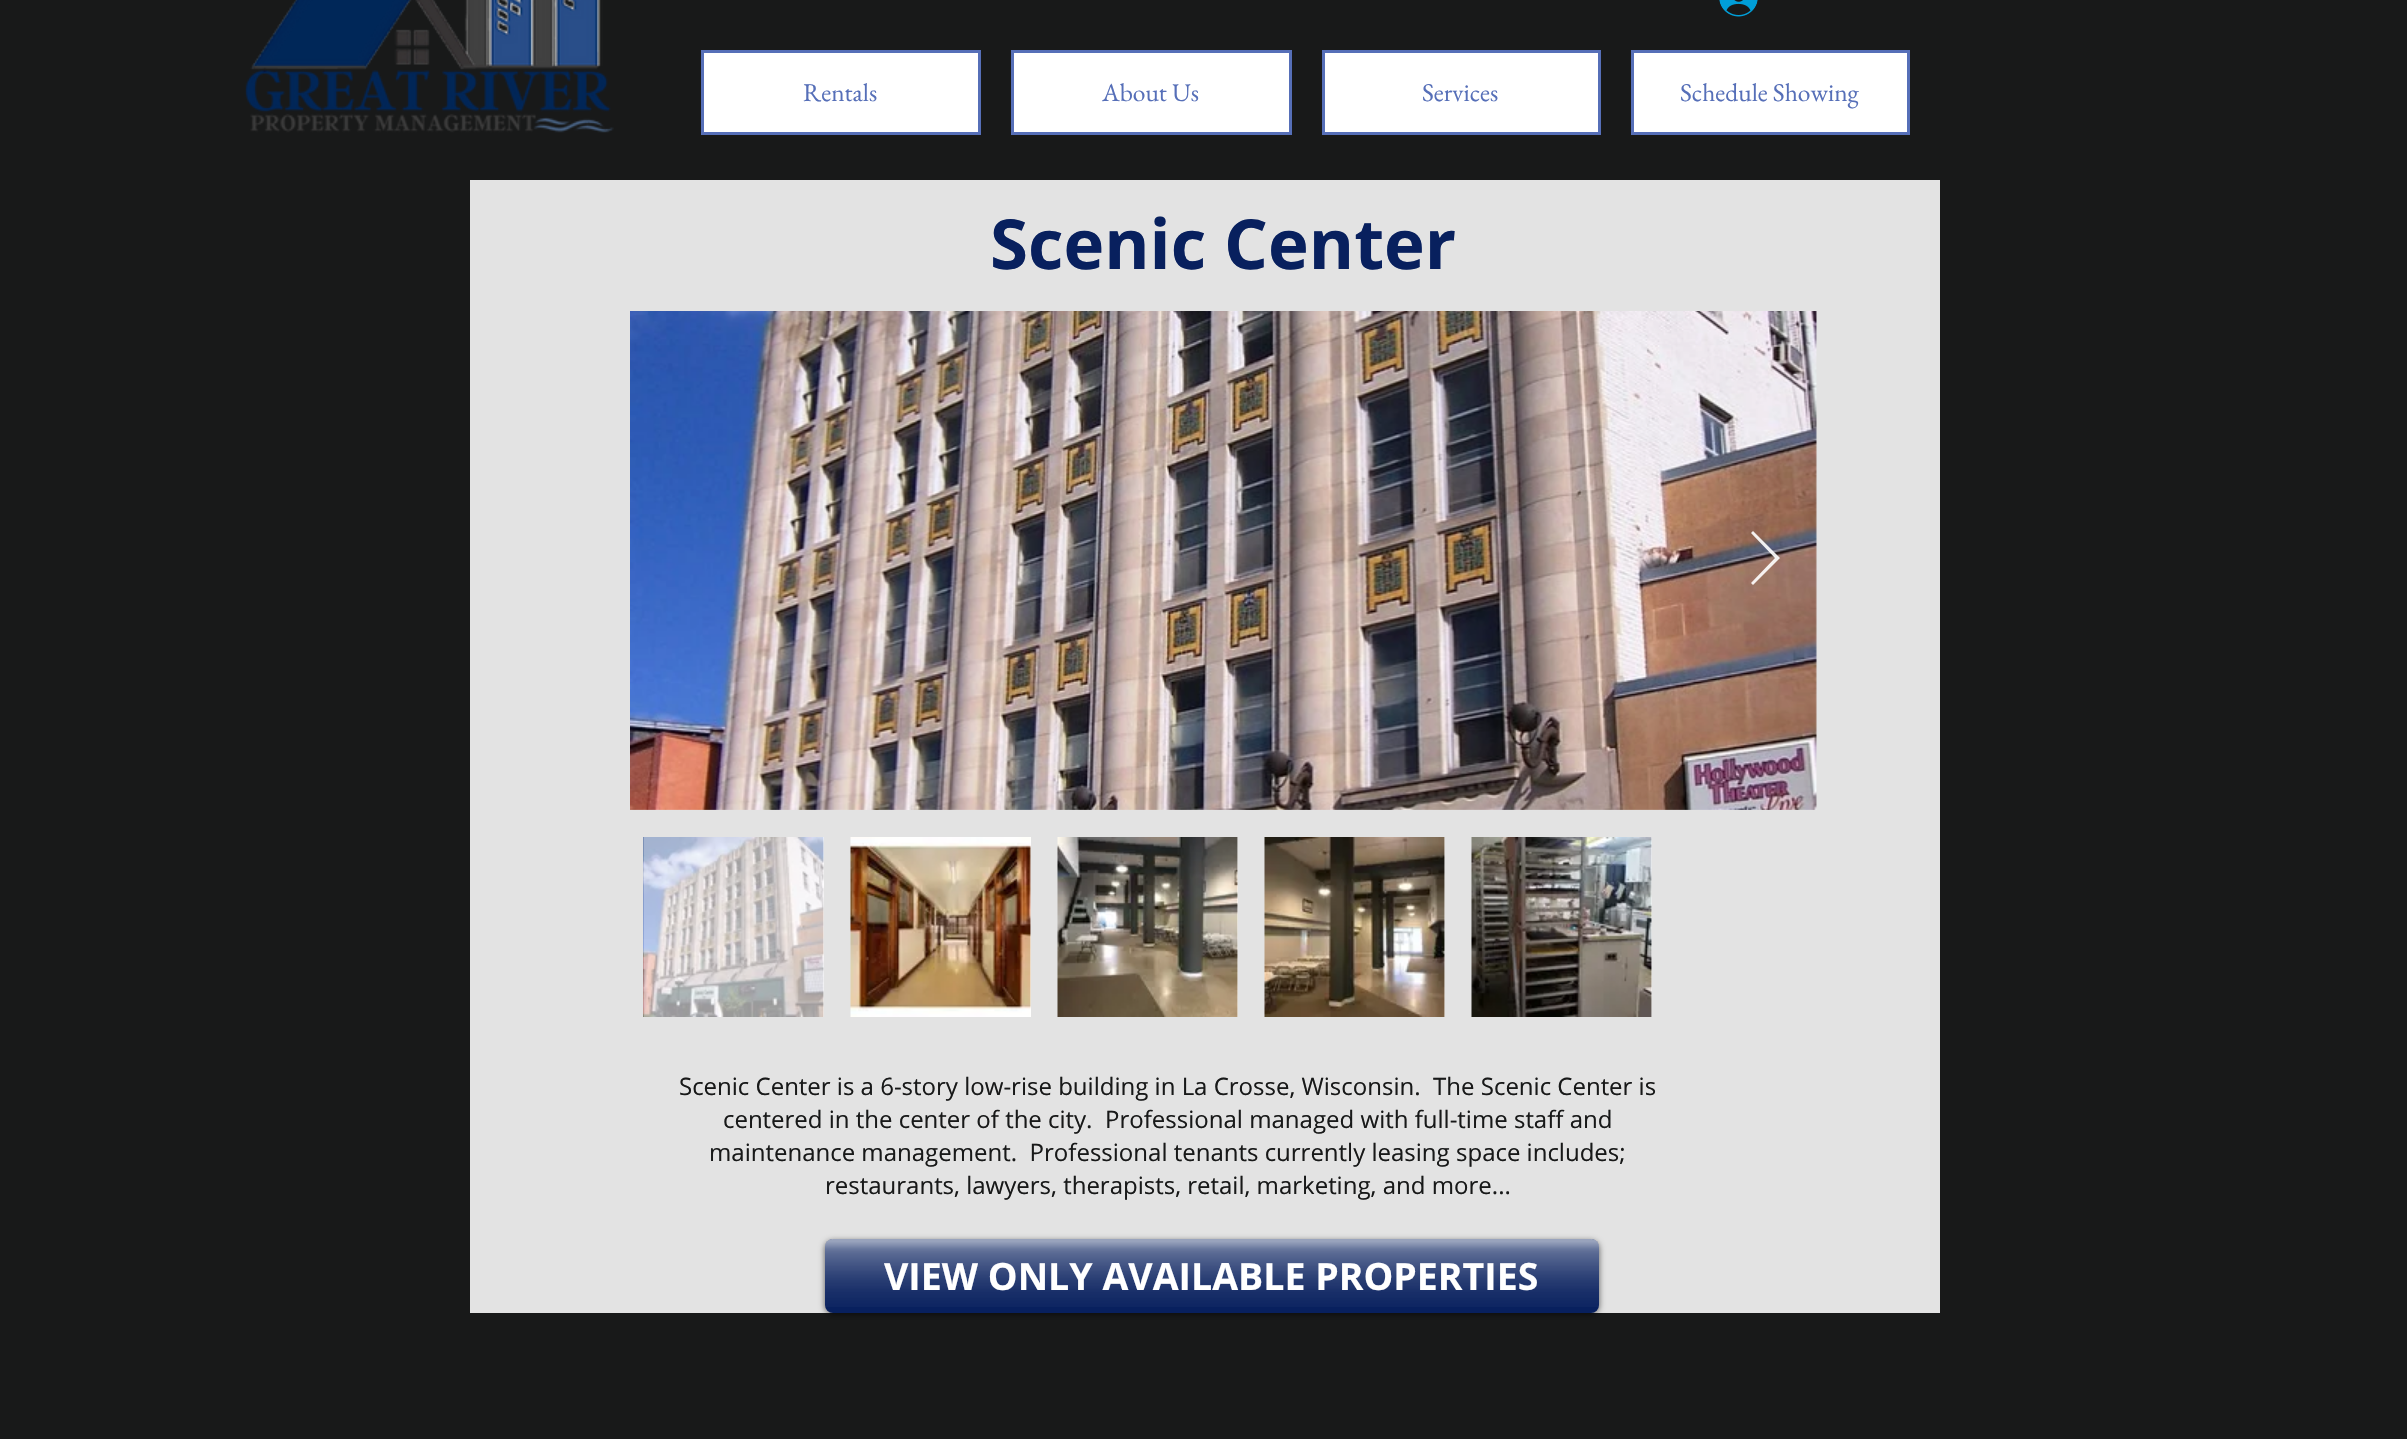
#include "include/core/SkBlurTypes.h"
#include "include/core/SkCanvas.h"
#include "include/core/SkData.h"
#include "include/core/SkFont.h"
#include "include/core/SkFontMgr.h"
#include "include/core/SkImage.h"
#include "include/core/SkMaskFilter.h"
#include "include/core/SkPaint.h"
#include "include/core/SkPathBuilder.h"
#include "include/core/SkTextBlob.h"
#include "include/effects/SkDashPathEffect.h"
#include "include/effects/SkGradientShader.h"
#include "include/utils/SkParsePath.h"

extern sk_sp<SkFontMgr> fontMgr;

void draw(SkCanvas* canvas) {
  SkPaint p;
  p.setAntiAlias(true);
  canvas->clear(SkColorSetRGB(24, 25, 25));
  canvas->drawImageRect(SkImages::DeferredFromEncodedData(SkData::MakeFromFileName("images/1.png")), SkRect::MakeLTRB(245, 0, 614, 133), SkSamplingOptions());
  canvas->drawImageRect(SkImages::DeferredFromEncodedData(SkData::MakeFromFileName("images/2.png")), SkRect::MakeLTRB(1719, 0, 1758, 17), SkSamplingOptions());
  p.setColor(SK_ColorWHITE);
  canvas->drawRect(SkRect::MakeLTRB(702.5f, 51.5f, 979.5f, 133.5f), p);
  p.setStyle(SkPaint::kStroke_Style);
  p.setStrokeWidth(3);
  p.setColor(SkColorSetRGB(86, 111, 184));
  canvas->drawRect(SkRect::MakeLTRB(702.5f, 51.5f, 979.5f, 133.5f), p);
  p.setStyle(SkPaint::kFill_Style);
  p.setColor(SK_ColorWHITE);
  canvas->drawRect(SkRect::MakeLTRB(1012.5f, 51.5f, 1290.5f, 133.5f), p);
  p.setStyle(SkPaint::kStroke_Style);
  p.setColor(SkColorSetRGB(86, 111, 184));
  canvas->drawRect(SkRect::MakeLTRB(1012.5f, 51.5f, 1290.5f, 133.5f), p);
  p.setStyle(SkPaint::kFill_Style);
  p.setColor(SK_ColorWHITE);
  canvas->drawRect(SkRect::MakeLTRB(1323.5f, 51.5f, 1599.5f, 133.5f), p);
  p.setStyle(SkPaint::kStroke_Style);
  p.setColor(SkColorSetRGB(86, 111, 184));
  canvas->drawRect(SkRect::MakeLTRB(1323.5f, 51.5f, 1599.5f, 133.5f), p);
  p.setStyle(SkPaint::kFill_Style);
  p.setColor(SK_ColorWHITE);
  canvas->drawRect(SkRect::MakeLTRB(1632.5f, 51.5f, 1908.5f, 133.5f), p);
  p.setStyle(SkPaint::kStroke_Style);
  p.setColor(SkColorSetRGB(86, 111, 184));
  canvas->drawRect(SkRect::MakeLTRB(1632.5f, 51.5f, 1908.5f, 133.5f), p);
  p.setStyle(SkPaint::kFill_Style);
  p.setColor(SkColorSetRGB(227, 227, 227));
  canvas->drawRect(SkRect::MakeLTRB(470, 180, 1940, 1313), p);
  canvas->drawImageRect(SkImages::DeferredFromEncodedData(SkData::MakeFromFileName("images/3.png")), SkRect::MakeLTRB(630, 311, 1817, 810), SkSamplingOptions());
  p.setColor(SkColorSetARGB(230, 255, 255, 255));
  canvas->drawPath(SkPathBuilder().moveTo(1751, 533).lineTo(1753, 531).lineTo(1780, 558).lineTo(1753, 585).lineTo(1751, 583).lineTo(1775, 558).close().detach(), p);
  p.setColor(SK_ColorWHITE);
  canvas->drawRect(SkRect::MakeLTRB(823, 837, 824, 1017), p);
  canvas->drawImageRect(SkImages::DeferredFromEncodedData(SkData::MakeFromFileName("images/4.png")), SkRect::MakeLTRB(643, 837, 824, 1017), SkSamplingOptions());
  canvas->drawRect(SkRect::MakeLTRB(1030, 837, 1031, 1017), p);
  canvas->drawImageRect(SkImages::DeferredFromEncodedData(SkData::MakeFromFileName("images/5.png")), SkRect::MakeLTRB(850, 837, 1031, 1017), SkSamplingOptions());
  canvas->drawRect(SkRect::MakeLTRB(1237, 837, 1238, 1017), p);
  canvas->drawImageRect(SkImages::DeferredFromEncodedData(SkData::MakeFromFileName("images/6.png")), SkRect::MakeLTRB(1057, 837, 1238, 1017), SkSamplingOptions());
  canvas->drawRect(SkRect::MakeLTRB(1444, 837, 1445, 1017), p);
  canvas->drawImageRect(SkImages::DeferredFromEncodedData(SkData::MakeFromFileName("images/7.png")), SkRect::MakeLTRB(1264, 837, 1445, 1017), SkSamplingOptions());
  canvas->drawRect(SkRect::MakeLTRB(1651, 837, 1652, 1017), p);
  canvas->drawImageRect(SkImages::DeferredFromEncodedData(SkData::MakeFromFileName("images/8.png")), SkRect::MakeLTRB(1471, 837, 1652, 1017), SkSamplingOptions());
  p.setColor(SkColorSetARGB(153, 0, 0, 0));
  p.setMaskFilter(SkMaskFilter::MakeBlur(kNormal_SkBlurStyle, 3));
  canvas->drawRoundRect(SkRect::MakeLTRB(825, 1241, 1599, 1314), 8, 8, p);
  p.setMaskFilter(nullptr);
  p.setColor(SkColorSetRGB(8, 32, 94));
  canvas->drawRoundRect(SkRect::MakeLTRB(825, 1239, 1599, 1313), 8, 8, p);
  canvas->drawImageRect(SkImages::DeferredFromEncodedData(SkData::MakeFromFileName("images/9.png")), SkRect::MakeLTRB(825, 1239, 1599, 1307), SkSamplingOptions());
  SkFont font1(fontMgr->matchFamilyStyle("EB Garamond", SkFontStyle::Normal()), 25.5f);
  font1.setSubpixel(true);
  p.setColor(SkColorSetRGB(86, 111, 184));
  canvas->drawString("Rentals", 803, 101, font1, p);
  canvas->drawString("About Us", 1102, 101, font1, p);
  canvas->drawString("Services", 1422, 101, font1, p);
  canvas->drawString("Schedule Showing", 1680, 101, font1, p);
  SkFont font2(fontMgr->matchFamilyStyle("Open Sans", SkFontStyle::Bold()), 69);
  font2.setSubpixel(true);
  p.setColor(SkColorSetRGB(8, 32, 94));
  canvas->drawString("Scenic Center", 990, 269, font2, p);
  SkFont font3(fontMgr->matchFamilyStyle("Open Sans", SkFontStyle::Normal()), 24);
  font3.setSubpixel(true);
  p.setColor(SkColorSetRGB(24, 25, 25));
  canvas->drawString("Scenic Center is a 6-story low-rise building in La Crosse, Wisconsin.  The Scenic Center is", 679, 1095, font3, p);
  canvas->drawString("centered in the center of the city.  Professional managed with full-time staff and", 723, 1128, font3, p);
  canvas->drawString("maintenance management.  Professional tenants currently leasing space includes;", 709, 1161, font3, p);
  canvas->drawString("restaurants, lawyers, therapists, retail, marketing, and more...", 825, 1194, font3, p);
  SkFont font4(fontMgr->matchFamilyStyle("Open Sans", SkFontStyle::Bold()), 37.5f);
  font4.setSubpixel(true);
  p.setColor(SK_ColorWHITE);
  canvas->drawString("VIEW ONLY AVAILABLE PROPERTIES", 884, 1290, font4, p);
}
